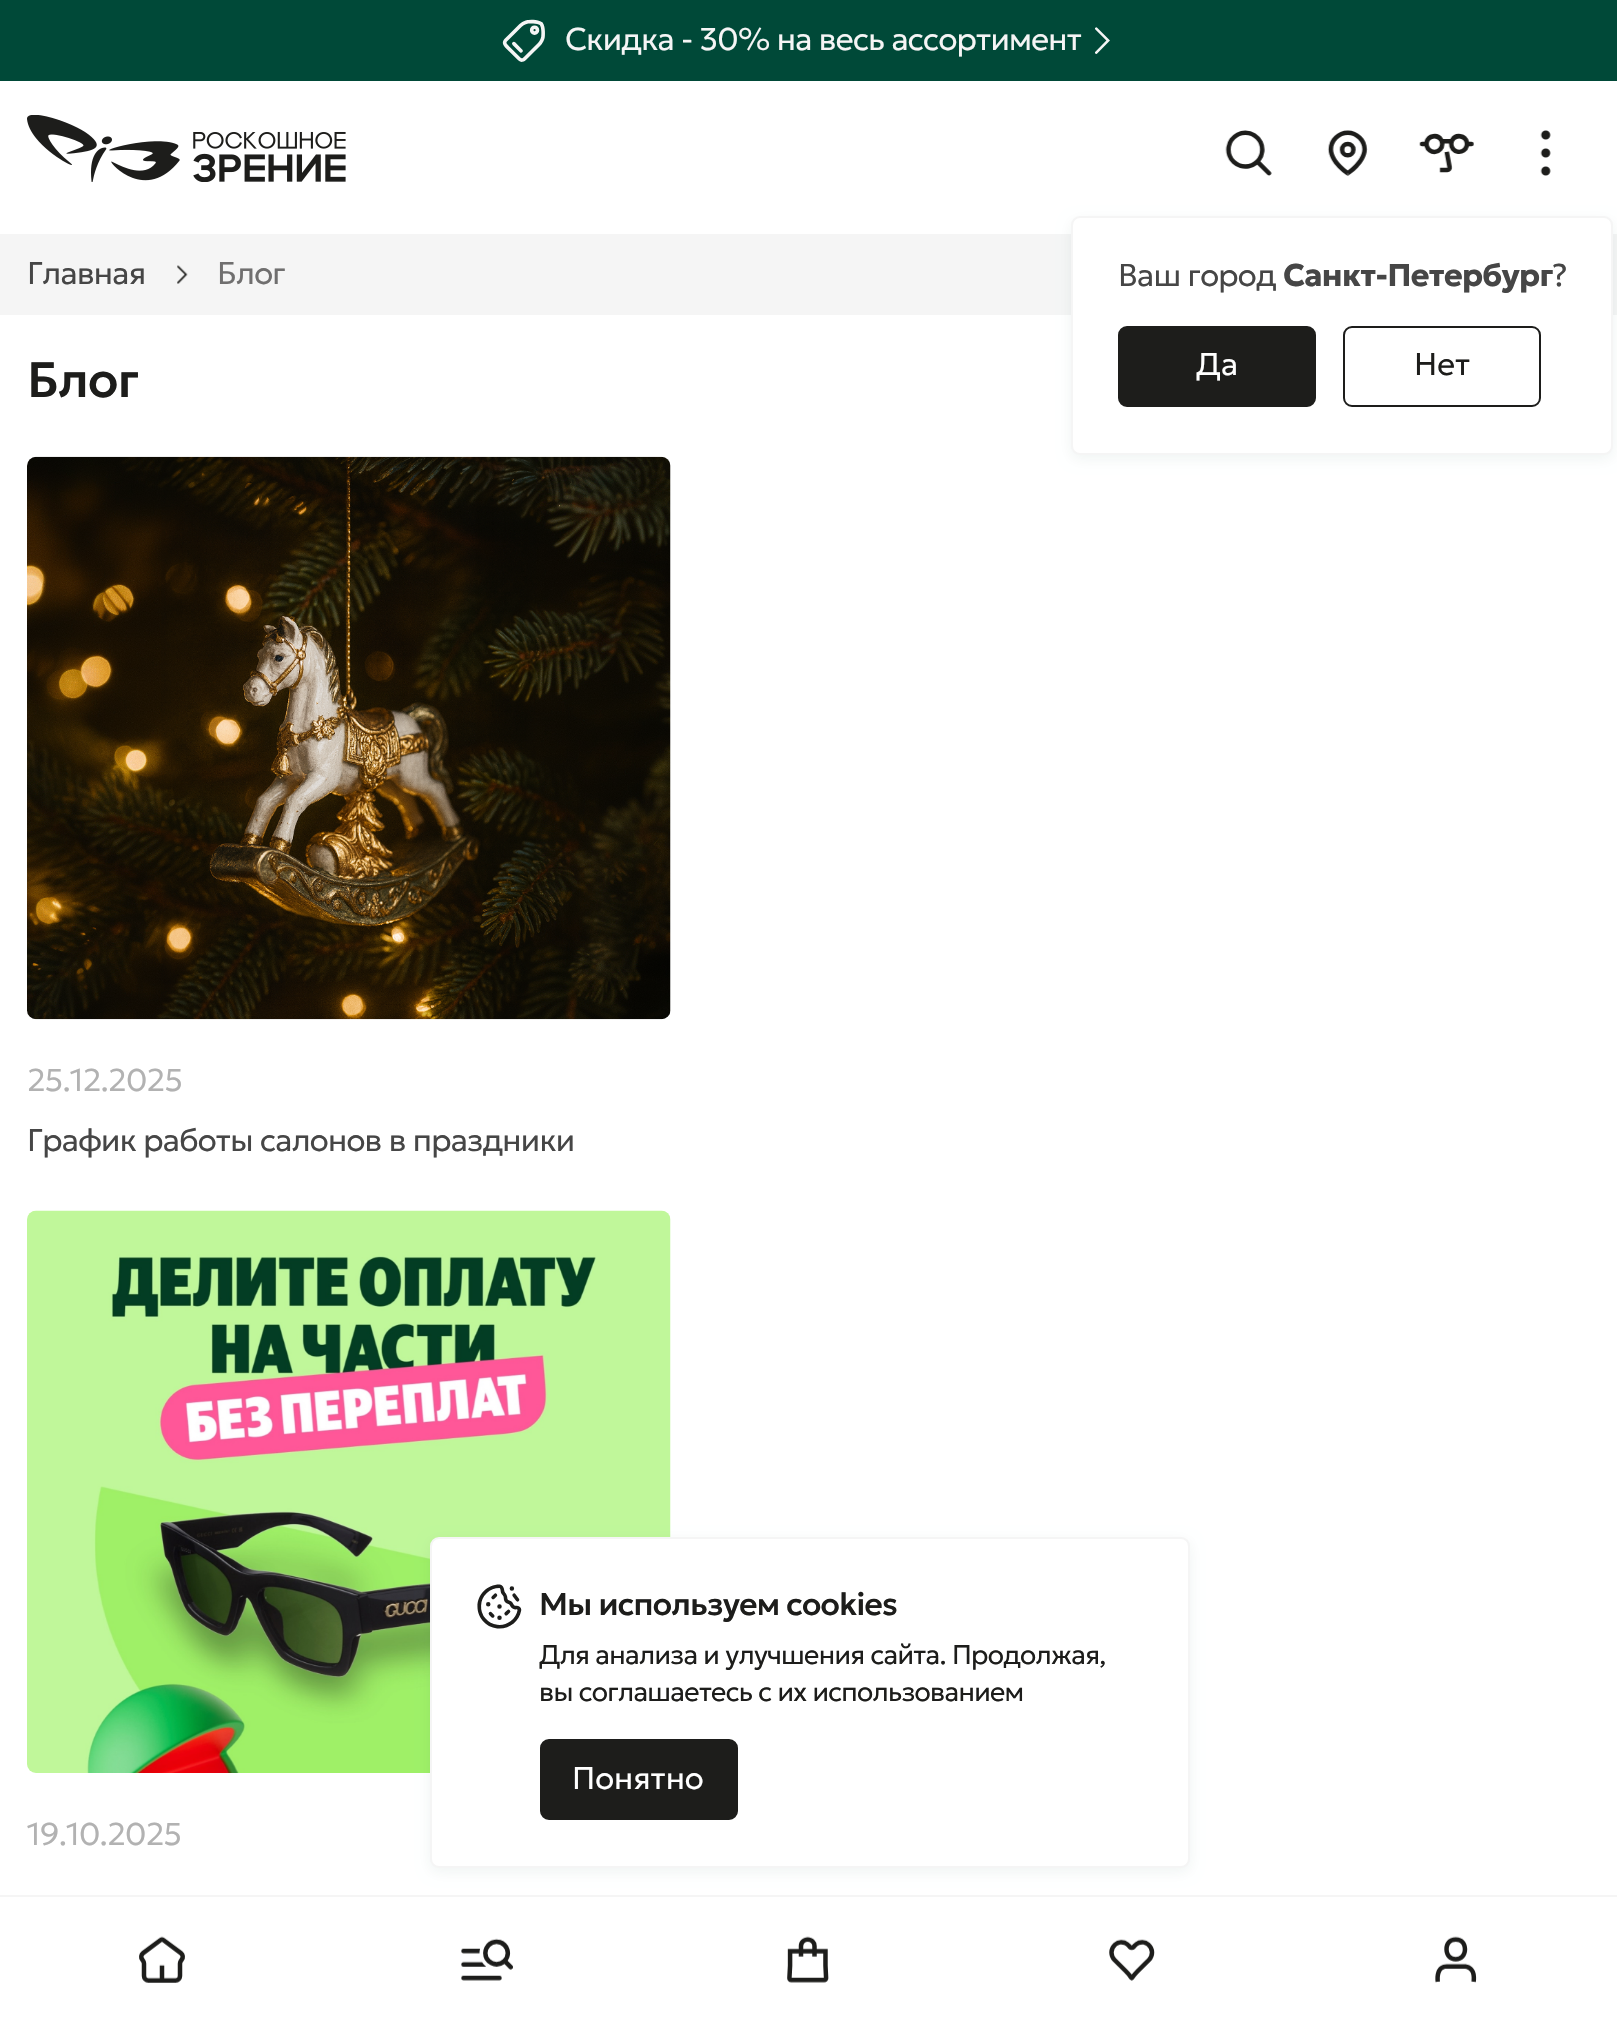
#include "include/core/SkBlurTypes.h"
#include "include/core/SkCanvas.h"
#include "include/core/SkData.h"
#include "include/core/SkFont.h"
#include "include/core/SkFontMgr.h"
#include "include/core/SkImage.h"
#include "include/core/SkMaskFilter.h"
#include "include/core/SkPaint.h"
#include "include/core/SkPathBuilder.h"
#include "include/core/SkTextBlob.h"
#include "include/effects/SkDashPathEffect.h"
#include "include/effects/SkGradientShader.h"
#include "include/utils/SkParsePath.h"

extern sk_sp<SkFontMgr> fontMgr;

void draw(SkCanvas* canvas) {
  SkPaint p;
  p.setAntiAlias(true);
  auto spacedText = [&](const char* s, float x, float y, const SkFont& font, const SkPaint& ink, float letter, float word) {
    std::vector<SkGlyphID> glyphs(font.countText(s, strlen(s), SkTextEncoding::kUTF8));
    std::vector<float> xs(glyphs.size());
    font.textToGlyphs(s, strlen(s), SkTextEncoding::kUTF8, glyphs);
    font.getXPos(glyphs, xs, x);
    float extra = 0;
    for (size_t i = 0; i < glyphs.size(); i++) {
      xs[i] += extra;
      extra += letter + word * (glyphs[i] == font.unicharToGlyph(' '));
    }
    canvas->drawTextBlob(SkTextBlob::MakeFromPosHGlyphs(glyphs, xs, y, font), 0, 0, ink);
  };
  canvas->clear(SK_ColorWHITE);
  p.setColor(SkColorSetRGB(0, 73, 56));
  canvas->drawRect(SkRect::MakeLTRB(0, 0, 1617, 81), p);
  canvas->drawImageRect(SkImages::DeferredFromEncodedData(SkData::MakeFromFileName("images/1.png")), SkRect::MakeLTRB(502, 19, 545, 62), SkSamplingOptions());
  canvas->drawImageRect(SkImages::DeferredFromEncodedData(SkData::MakeFromFileName("images/2.png")), SkRect::MakeLTRB(1095, 27, 1110, 54), SkSamplingOptions());
  canvas->drawImageRect(SkImages::DeferredFromEncodedData(SkData::MakeFromFileName("images/3.png")), SkRect::MakeLTRB(27, 115, 346, 182), SkSamplingOptions());
  canvas->drawImageRect(SkImages::DeferredFromEncodedData(SkData::MakeFromFileName("images/4.png")), SkRect::MakeLTRB(1225, 130, 1272, 176), SkSamplingOptions());
  canvas->drawImageRect(SkImages::DeferredFromEncodedData(SkData::MakeFromFileName("images/5.png")), SkRect::MakeLTRB(1327, 130, 1368, 176), SkSamplingOptions());
  canvas->drawImageRect(SkImages::DeferredFromEncodedData(SkData::MakeFromFileName("images/6.png")), SkRect::MakeLTRB(1419, 133, 1474, 173), SkSamplingOptions());
  canvas->drawImageRect(SkImages::DeferredFromEncodedData(SkData::MakeFromFileName("images/7.png")), SkRect::MakeLTRB(1540, 130, 1551, 176), SkSamplingOptions());
  p.setColor(SkColorSetRGB(245, 245, 245));
  canvas->drawRect(SkRect::MakeLTRB(0, 234, 1617, 315), p);
  canvas->drawImageRect(SkImages::DeferredFromEncodedData(SkData::MakeFromFileName("images/8.png")), SkRect::MakeLTRB(177, 265, 188, 284), SkSamplingOptions());
  canvas->drawImageRect(SkImages::DeferredFromEncodedData(SkData::MakeFromFileName("images/9.png")), SkRect::MakeLTRB(27, 456, 671, 1020), SkSamplingOptions());
  canvas->drawImageRect(SkImages::DeferredFromEncodedData(SkData::MakeFromFileName("images/10.png")), SkRect::MakeLTRB(27, 1210, 671, 1773), SkSamplingOptions());
  p.setColor(SkColorSetARGB(15, 0, 73, 56));
  p.setMaskFilter(SkMaskFilter::MakeBlur(kNormal_SkBlurStyle, 7));
  canvas->drawRoundRect(SkRect::MakeLTRB(1071, 221, 1613, 459), 9, 9, p);
  p.setMaskFilter(nullptr);
  p.setColor(SK_ColorWHITE);
  canvas->drawRoundRect(SkRect::MakeLTRB(1072, 217, 1612, 454), 8, 8, p);
  p.setStyle(SkPaint::kStroke_Style);
  p.setStrokeWidth(2);
  p.setColor(SkColorSetRGB(245, 245, 245));
  canvas->drawRoundRect(SkRect::MakeLTRB(1072, 217, 1612, 454), 8, 8, p);
  p.setStyle(SkPaint::kFill_Style);
  p.setColor(SkColorSetRGB(29, 29, 27));
  canvas->drawRoundRect(SkRect::MakeLTRB(1119, 327, 1315, 406), 8, 8, p);
  p.setStyle(SkPaint::kStroke_Style);
  canvas->drawRoundRect(SkRect::MakeLTRB(1119, 327, 1315, 406), 8, 8, p);
  canvas->drawRoundRect(SkRect::MakeLTRB(1344, 327, 1540, 406), 8, 8, p);
  p.setStyle(SkPaint::kFill_Style);
  p.setColor(SkColorSetARGB(15, 0, 73, 56));
  p.setMaskFilter(SkMaskFilter::MakeBlur(kNormal_SkBlurStyle, 7));
  canvas->drawRoundRect(SkRect::MakeLTRB(430, 1541, 1190, 1872), 9, 9, p);
  p.setMaskFilter(nullptr);
  p.setColor(SK_ColorWHITE);
  canvas->drawRoundRect(SkRect::MakeLTRB(431, 1538, 1189, 1867), 8, 8, p);
  p.setStyle(SkPaint::kStroke_Style);
  p.setColor(SkColorSetRGB(245, 245, 245));
  canvas->drawRoundRect(SkRect::MakeLTRB(431, 1538, 1189, 1867), 8, 8, p);
  canvas->drawImageRect(SkImages::DeferredFromEncodedData(SkData::MakeFromFileName("images/11.png")), SkRect::MakeLTRB(477, 1584, 522, 1629), SkSamplingOptions());
  p.setStyle(SkPaint::kFill_Style);
  p.setColor(SkColorSetRGB(29, 29, 27));
  canvas->drawRoundRect(SkRect::MakeLTRB(541, 1740, 737, 1819), 8, 8, p);
  p.setStyle(SkPaint::kStroke_Style);
  canvas->drawRoundRect(SkRect::MakeLTRB(541, 1740, 737, 1819), 8, 8, p);
  p.setStyle(SkPaint::kFill_Style);
  p.setColor(SkColorSetRGB(245, 245, 245));
  canvas->drawRect(SkRect::MakeLTRB(0, 1895, 1617, 1897), p);
  canvas->drawImageRect(SkImages::DeferredFromEncodedData(SkData::MakeFromFileName("images/12.png")), SkRect::MakeLTRB(139, 1936, 185, 1983), SkSamplingOptions());
  canvas->drawImageRect(SkImages::DeferredFromEncodedData(SkData::MakeFromFileName("images/13.png")), SkRect::MakeLTRB(461, 1938, 513, 1981), SkSamplingOptions());
  canvas->drawImageRect(SkImages::DeferredFromEncodedData(SkData::MakeFromFileName("images/14.png")), SkRect::MakeLTRB(787, 1936, 829, 1983), SkSamplingOptions());
  canvas->drawImageRect(SkImages::DeferredFromEncodedData(SkData::MakeFromFileName("images/15.png")), SkRect::MakeLTRB(1109, 1939, 1155, 1981), SkSamplingOptions());
  canvas->drawImageRect(SkImages::DeferredFromEncodedData(SkData::MakeFromFileName("images/16.png")), SkRect::MakeLTRB(1435, 1936, 1477, 1983), SkSamplingOptions());
  SkFont font1(fontMgr->matchFamilyStyle("Geologica", SkFontStyle(300, SkFontStyle::kNormal_Width, SkFontStyle::kUpright_Slant)), 31.5f);
  font1.setSubpixel(true);
  spacedText("Скидка - 30% на весь ассортимент", 565, 50, font1, p, -0.7f, 0);
  p.setColor(SkColorSetRGB(70, 70, 70));
  spacedText("Главная", 27, 284, font1, p, -0.7f, 0);
  p.setColor(SkColorSetRGB(112, 111, 111));
  spacedText("Блог", 217, 284, font1, p, -0.7f, 0);
  SkFont font2(fontMgr->matchFamilyStyle("Geologica", SkFontStyle(500, SkFontStyle::kNormal_Width, SkFontStyle::kUpright_Slant)), 49.5f);
  font2.setSubpixel(true);
  p.setColor(SkColorSetRGB(29, 29, 27));
  spacedText("Блог", 27, 397, font2, p, -0.7f, 0);
  p.setColor(SkColorSetRGB(178, 178, 178));
  spacedText("25.12.2025", 27, 1091, font1, p, -0.7f, 0);
  p.setColor(SkColorSetRGB(70, 70, 70));
  spacedText("График работы салонов в праздники", 27, 1151, font1, p, -0.7f, 0);
  p.setColor(SkColorSetRGB(178, 178, 178));
  spacedText("19.10.2025", 27, 1845, font1, p, -0.7f, 0);
  p.setColor(SkColorSetRGB(70, 70, 70));
  spacedText("Ваш город", 1118, 286, font1, p, -0.7f, 0);
  SkFont font3(fontMgr->matchFamilyStyle("Geologica", SkFontStyle::Bold()), 31.5f);
  font3.setSubpixel(true);
  spacedText("Санкт-Петербург", 1283, 286, font3, p, -0.7f, 0);
  spacedText("?", 1552, 286, font1, p, -0.7f, 0);
  p.setColor(SK_ColorWHITE);
  canvas->drawString("Да", 1196, 375, font1, p);
  p.setColor(SkColorSetRGB(29, 29, 27));
  canvas->drawString("Нет", 1414, 375, font1, p);
  SkFont font4(fontMgr->matchFamilyStyle("Geologica", SkFontStyle(500, SkFontStyle::kNormal_Width, SkFontStyle::kUpright_Slant)), 31.5f);
  font4.setSubpixel(true);
  spacedText("Мы используем cookies", 539, 1615, font4, p, -0.7f, 0);
  SkFont font5(fontMgr->matchFamilyStyle("Geologica", SkFontStyle(300, SkFontStyle::kNormal_Width, SkFontStyle::kUpright_Slant)), 27);
  font5.setSubpixel(true);
  spacedText("Для анализа и улучшения сайта. Продолжая,", 539, 1664, font5, p, -0.7f, 0);
  spacedText("вы соглашаетесь с их использованием", 539, 1701, font5, p, -0.7f, 0);
  p.setColor(SK_ColorWHITE);
  canvas->drawString("Понятно", 572, 1789, font1, p);
}
